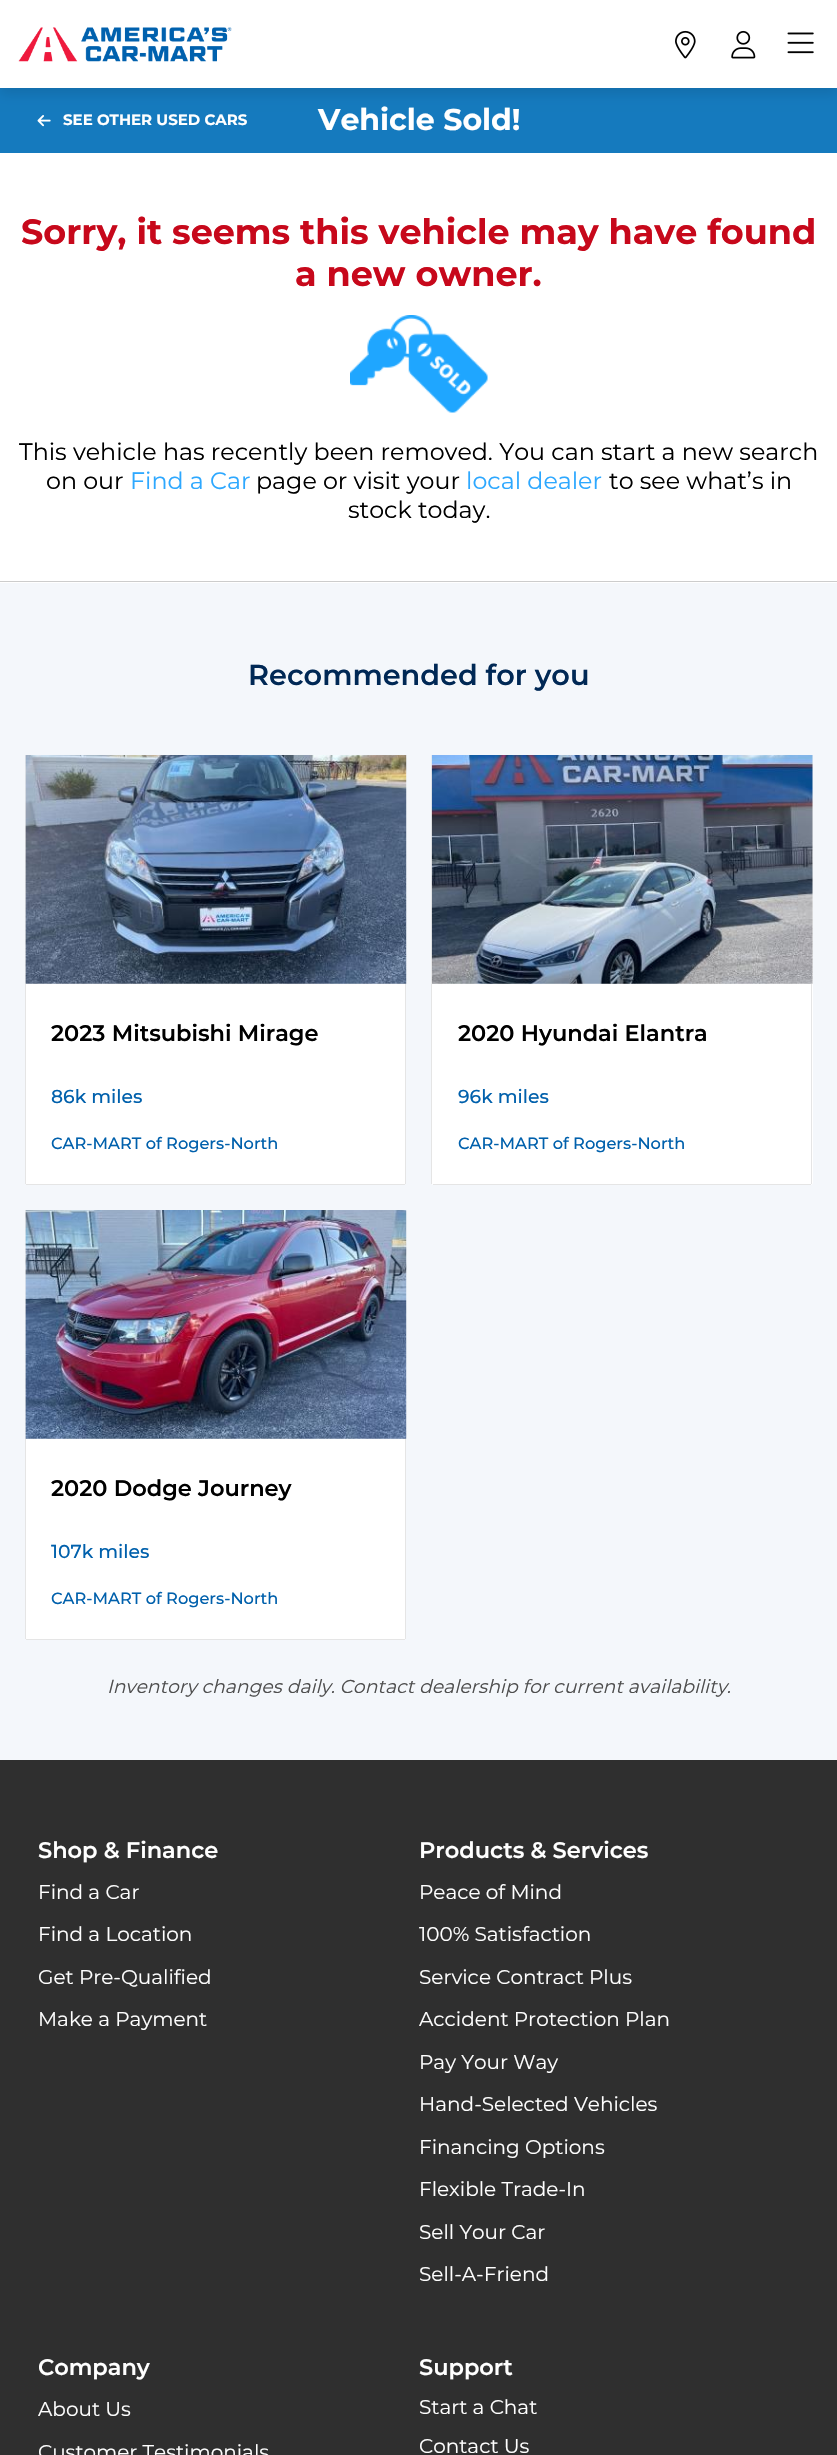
#include "include/core/SkBlurTypes.h"
#include "include/core/SkCanvas.h"
#include "include/core/SkData.h"
#include "include/core/SkFont.h"
#include "include/core/SkFontMgr.h"
#include "include/core/SkImage.h"
#include "include/core/SkMaskFilter.h"
#include "include/core/SkPaint.h"
#include "include/core/SkPathBuilder.h"
#include "include/core/SkTextBlob.h"
#include "include/effects/SkDashPathEffect.h"
#include "include/effects/SkGradientShader.h"
#include "include/utils/SkParsePath.h"

extern sk_sp<SkFontMgr> fontMgr;

void draw(SkCanvas* canvas) {
  SkPaint p;
  p.setAntiAlias(true);
  canvas->clear(SK_ColorWHITE);
  p.setColor(SkColorSetRGB(21, 122, 190));
  canvas->drawRect(SkRect::MakeLTRB(0, 88, 837, 153), p);
  p.setColor(SkColorSetARGB(26, 0, 0, 0));
  p.setMaskFilter(SkMaskFilter::MakeBlur(kNormal_SkBlurStyle, 6));
  canvas->drawRect(SkRect::MakeLTRB(0, 6, 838, 94), p);
  p.setMaskFilter(nullptr);
  p.setColor(SK_ColorWHITE);
  canvas->drawRect(SkRect::MakeLTRB(0, 0, 837, 88), p);
  canvas->drawImageRect(SkImages::DeferredFromEncodedData(SkData::MakeFromFileName("images/1.png")), SkRect::MakeLTRB(18, 27, 232, 62), SkSamplingOptions());
  canvas->drawImageRect(SkImages::DeferredFromEncodedData(SkData::MakeFromFileName("images/2.png")), SkRect::MakeLTRB(675, 30, 696, 59), SkSamplingOptions());
  canvas->drawImageRect(SkImages::DeferredFromEncodedData(SkData::MakeFromFileName("images/3.png")), SkRect::MakeLTRB(731, 30, 756, 59), SkSamplingOptions());
  canvas->drawImageRect(SkImages::DeferredFromEncodedData(SkData::MakeFromFileName("images/4.png")), SkRect::MakeLTRB(787, 32, 814, 54), SkSamplingOptions());
  canvas->drawImageRect(SkImages::DeferredFromEncodedData(SkData::MakeFromFileName("images/5.png")), SkRect::MakeLTRB(37, 115, 51, 127), SkSamplingOptions());
  p.setColor(SkColorSetRGB(204, 204, 204));
  canvas->drawRect(SkRect::MakeLTRB(0, 581, 837, 582), p);
  canvas->drawImageRect(SkImages::DeferredFromEncodedData(SkData::MakeFromFileName("images/6.png")), SkRect::MakeLTRB(350, 315, 488, 413), SkSamplingOptions());
  p.setColor(SkColorSetRGB(244, 247, 251));
  canvas->drawRect(SkRect::MakeLTRB(0, 583, 837, 1760), p);
  p.setColor(SkColorSetRGB(241, 241, 241));
  canvas->drawRect(SkRect::MakeLTRB(25, 755, 406, 984), p);
  canvas->drawImageRect(SkImages::DeferredFromEncodedData(SkData::MakeFromFileName("images/7.png")), SkRect::MakeLTRB(25, 755, 407, 984), SkSamplingOptions());
  p.setColor(SK_ColorWHITE);
  canvas->drawPath(SkPathBuilder().moveTo(25, 984).lineTo(406, 984).lineTo(406, 1182.5f).cubicTo(406, 1184, 405, 1185, 403.5f, 1185).lineTo(27.5f, 1185).cubicTo(26, 1185, 25, 1184, 25, 1182.5f).close().detach(), p);
  p.setColor(SkColorSetRGB(229, 229, 229));
  canvas->drawRect(SkRect::MakeLTRB(405, 984, 406, 1184), p);
  canvas->drawRect(SkRect::MakeLTRB(26, 1184, 405, 1185), p);
  canvas->drawRect(SkRect::MakeLTRB(25, 984, 26, 1184), p);
  p.setColor(SkColorSetRGB(241, 241, 241));
  canvas->drawRect(SkRect::MakeLTRB(431, 755, 813, 984), p);
  canvas->drawImageRect(SkImages::DeferredFromEncodedData(SkData::MakeFromFileName("images/8.png")), SkRect::MakeLTRB(431, 755, 813, 984), SkSamplingOptions());
  p.setColor(SK_ColorWHITE);
  canvas->drawPath(SkPathBuilder().moveTo(431, 984).lineTo(813, 984).lineTo(813, 1182.5f).cubicTo(813, 1184, 812, 1185, 810.5f, 1185).lineTo(433.5f, 1185).cubicTo(432, 1185, 431, 1184, 431, 1182.5f).close().detach(), p);
  p.setColor(SkColorSetRGB(229, 229, 229));
  canvas->drawRect(SkRect::MakeLTRB(811, 984, 812, 1184), p);
  canvas->drawRect(SkRect::MakeLTRB(433, 1184, 811, 1185), p);
  canvas->drawRect(SkRect::MakeLTRB(431, 984, 432, 1184), p);
  p.setColor(SkColorSetRGB(241, 241, 241));
  canvas->drawRect(SkRect::MakeLTRB(25, 1210, 406, 1439), p);
  canvas->drawImageRect(SkImages::DeferredFromEncodedData(SkData::MakeFromFileName("images/9.png")), SkRect::MakeLTRB(25, 1210, 407, 1439), SkSamplingOptions());
  p.setColor(SK_ColorWHITE);
  canvas->drawPath(SkPathBuilder().moveTo(25, 1439).lineTo(406, 1439).lineTo(406, 1637.5f).cubicTo(406, 1639, 405, 1640, 403.5f, 1640).lineTo(27.5f, 1640).cubicTo(26, 1640, 25, 1639, 25, 1637.5f).close().detach(), p);
  p.setColor(SkColorSetRGB(229, 229, 229));
  canvas->drawRect(SkRect::MakeLTRB(405, 1439, 406, 1639), p);
  canvas->drawRect(SkRect::MakeLTRB(26, 1639, 405, 1640), p);
  canvas->drawRect(SkRect::MakeLTRB(25, 1439, 26, 1639), p);
  p.setColor(SkColorSetRGB(47, 47, 47));
  canvas->drawRect(SkRect::MakeLTRB(0, 1760, 837, 2455), p);
  SkFont font1(fontMgr->matchFamilyStyle("Montserrat", SkFontStyle::Bold()), 15);
  font1.setSubpixel(true);
  p.setColor(SK_ColorWHITE);
  canvas->drawString("SEE OTHER USED CARS", 63, 125, font1, p);
  SkFont font2(fontMgr->matchFamilyStyle("Montserrat", SkFontStyle::Bold()), 30);
  font2.setSubpixel(true);
  canvas->drawString("Vehicle Sold!", 318, 130, font2, p);
  SkFont font3(fontMgr->matchFamilyStyle("Montserrat", SkFontStyle::Bold()), 35);
  font3.setSubpixel(true);
  p.setColor(SkColorSetRGB(199, 8, 27));
  canvas->drawString("Sorry, it seems this vehicle may have found", 21, 244, font3, p);
  canvas->drawString("a new owner.", 295, 286, font3, p);
  SkFont font4(fontMgr->matchFamilyStyle("Montserrat", SkFontStyle::Normal()), 23.75f);
  font4.setSubpixel(true);
  p.setColor(SK_ColorBLACK);
  canvas->drawString("This vehicle has recently been removed. You can start a new search", 19, 460, font4, p);
  canvas->drawString("on our", 46, 489, font4, p);
  p.setColor(SkColorSetRGB(45, 168, 255));
  canvas->drawString("Find a Car", 130, 489, font4, p);
  p.setColor(SK_ColorBLACK);
  canvas->drawString("page or visit your", 256, 489, font4, p);
  p.setColor(SkColorSetRGB(45, 168, 255));
  canvas->drawString("local dealer", 466, 489, font4, p);
  p.setColor(SK_ColorBLACK);
  canvas->drawString("to see what’s in", 609, 489, font4, p);
  canvas->drawString("stock today.", 348, 518, font4, p);
  SkFont font5(fontMgr->matchFamilyStyle("Montserrat", SkFontStyle(600, SkFontStyle::kNormal_Width, SkFontStyle::kUpright_Slant)), 28.75f);
  font5.setSubpixel(true);
  p.setColor(SkColorSetRGB(0, 40, 85));
  canvas->drawString("Recommended for you", 248, 685, font5, p);
  SkFont font6(fontMgr->matchFamilyStyle("Montserrat", SkFontStyle(600, SkFontStyle::kNormal_Width, SkFontStyle::kUpright_Slant)), 22.5f);
  font6.setSubpixel(true);
  p.setColor(SK_ColorBLACK);
  canvas->drawString("2023 Mitsubishi Mirage", 51, 1041, font6, p);
  SkFont font7(fontMgr->matchFamilyStyle("Montserrat", SkFontStyle(500, SkFontStyle::kNormal_Width, SkFontStyle::kUpright_Slant)), 18.75f);
  font7.setSubpixel(true);
  p.setColor(SkColorSetRGB(0, 96, 172));
  canvas->drawString("86k miles", 51, 1103, font7, p);
  SkFont font8(fontMgr->matchFamilyStyle("Montserrat", SkFontStyle(500, SkFontStyle::kNormal_Width, SkFontStyle::kUpright_Slant)), 16.25f);
  font8.setSubpixel(true);
  canvas->drawString("CAR-MART of Rogers-North", 51, 1149, font8, p);
  p.setColor(SK_ColorBLACK);
  canvas->drawString("2020 Hyundai Elantra", 458, 1041, font6, p);
  p.setColor(SkColorSetRGB(0, 96, 172));
  canvas->drawString("96k miles", 458, 1103, font7, p);
  canvas->drawString("CAR-MART of Rogers-North", 458, 1149, font8, p);
  p.setColor(SK_ColorBLACK);
  canvas->drawString("2020 Dodge Journey", 51, 1496, font6, p);
  p.setColor(SkColorSetRGB(0, 96, 172));
  canvas->drawString("107k miles", 51, 1558, font7, p);
  canvas->drawString("CAR-MART of Rogers-North", 51, 1604, font8, p);
  SkFont font9(fontMgr->matchFamilyStyle("Montserrat", SkFontStyle::Italic()), 18.75f);
  font9.setSubpixel(true);
  p.setColor(SkColorSetRGB(78, 78, 78));
  canvas->drawString("Inventory changes daily. Contact dealership for current availability.", 107, 1693, font9, p);
  p.setColor(SK_ColorWHITE);
  canvas->drawString("Shop & Finance", 38, 1858, font6, p);
  SkFont font10(fontMgr->matchFamilyStyle("Montserrat", SkFontStyle::Normal()), 20);
  font10.setSubpixel(true);
  canvas->drawString("Find a Car", 38, 1899, font10, p);
  canvas->drawString("Find a Location", 38, 1941, font10, p);
  canvas->drawString("Get Pre-Qualified", 38, 1984, font10, p);
  canvas->drawString("Make a Payment", 38, 2026, font10, p);
  canvas->drawString("Products & Services", 419, 1858, font6, p);
  canvas->drawString("Peace of Mind", 419, 1899, font10, p);
  canvas->drawString("100% Satisfaction", 419, 1941, font10, p);
  canvas->drawString("Service Contract Plus", 419, 1984, font10, p);
  canvas->drawString("Accident Protection Plan", 419, 2026, font10, p);
  canvas->drawString("Pay Your Way", 419, 2069, font10, p);
  canvas->drawString("Hand-Selected Vehicles", 419, 2111, font10, p);
  canvas->drawString("Financing Options", 419, 2154, font10, p);
  canvas->drawString("Flexible Trade-In", 419, 2196, font10, p);
  canvas->drawString("Sell Your Car", 419, 2239, font10, p);
  canvas->drawString("Sell-A-Friend", 419, 2281, font10, p);
  canvas->drawString("Company", 38, 2375, font6, p);
  canvas->drawString("About Us", 38, 2416, font10, p);
  canvas->drawString("Customer Testimonials", 38, 2459, font10, p);
  canvas->drawString("Support", 419, 2375, font6, p);
  canvas->drawString("Start a Chat", 419, 2414, font10, p);
  canvas->drawString("Contact Us", 419, 2453, font10, p);
}
